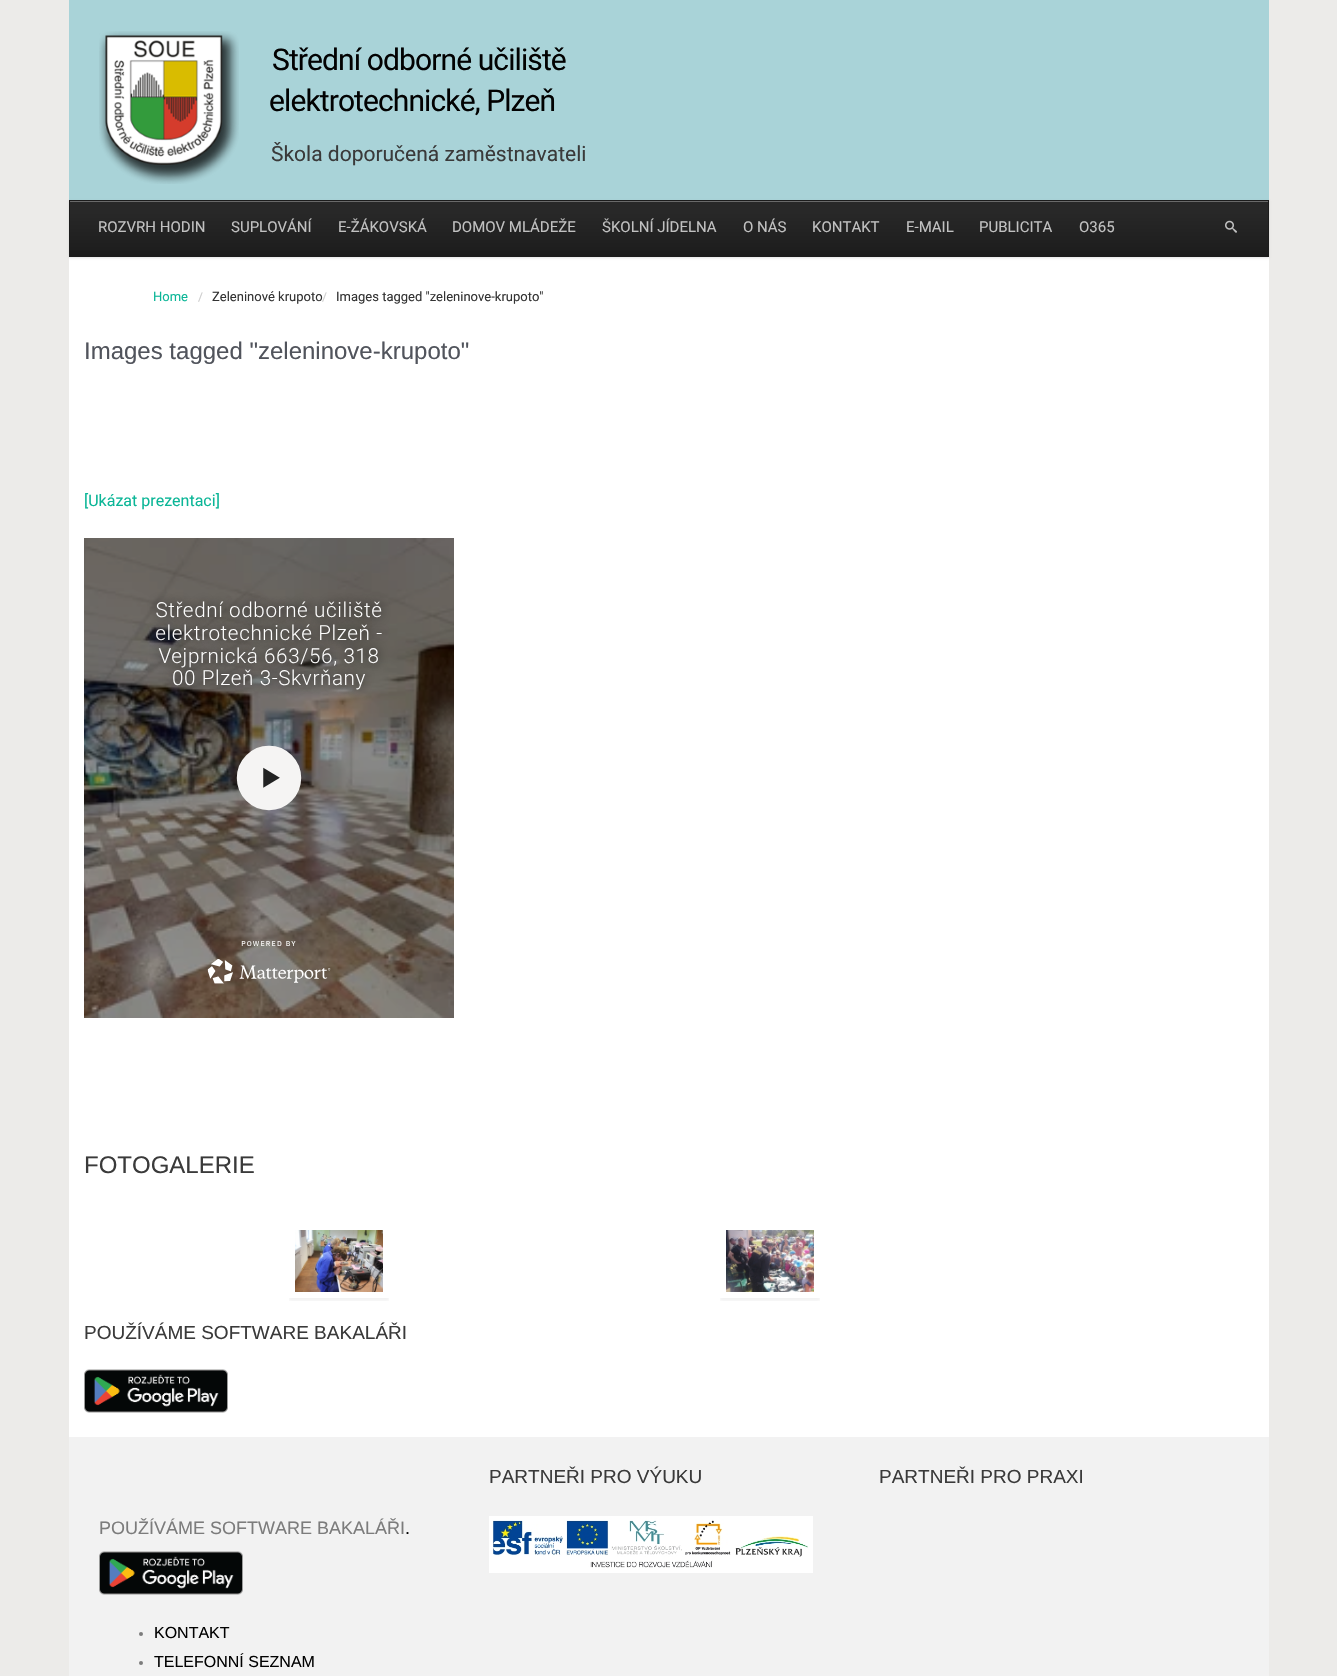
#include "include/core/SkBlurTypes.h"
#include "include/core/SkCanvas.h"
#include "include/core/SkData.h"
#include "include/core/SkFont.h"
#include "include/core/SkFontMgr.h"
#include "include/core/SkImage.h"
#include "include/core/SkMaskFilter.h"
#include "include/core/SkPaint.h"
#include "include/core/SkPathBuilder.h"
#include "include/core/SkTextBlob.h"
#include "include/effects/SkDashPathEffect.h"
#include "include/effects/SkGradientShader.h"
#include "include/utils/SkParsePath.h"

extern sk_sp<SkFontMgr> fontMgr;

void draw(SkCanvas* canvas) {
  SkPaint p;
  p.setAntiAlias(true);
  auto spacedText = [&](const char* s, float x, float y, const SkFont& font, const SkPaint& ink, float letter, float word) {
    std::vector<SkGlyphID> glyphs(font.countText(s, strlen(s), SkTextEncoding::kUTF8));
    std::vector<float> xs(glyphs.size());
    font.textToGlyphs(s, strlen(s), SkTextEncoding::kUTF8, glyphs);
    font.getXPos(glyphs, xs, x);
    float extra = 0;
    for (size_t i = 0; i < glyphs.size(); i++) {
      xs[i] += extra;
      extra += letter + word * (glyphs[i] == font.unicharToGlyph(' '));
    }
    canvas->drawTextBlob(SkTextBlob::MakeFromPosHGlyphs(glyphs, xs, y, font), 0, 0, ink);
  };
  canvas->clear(SkColorSetRGB(236, 235, 233));
  p.setColor(SkColorSetRGB(169, 211, 216));
  canvas->drawRect(SkRect::MakeLTRB(69, 0, 1269, 200), p);
  canvas->drawImageRect(SkImages::DeferredFromEncodedData(SkData::MakeFromFileName("images/1.png")), SkRect::MakeLTRB(99, 31, 239, 184), SkSamplingOptions());
  p.setColor(SK_ColorWHITE);
  canvas->drawRect(SkRect::MakeLTRB(69, 257, 1269, 1437), p);
  p.setColor(SkColorSetARGB(26, 0, 0, 0));
  p.setMaskFilter(SkMaskFilter::MakeBlur(kNormal_SkBlurStyle, 1));
  canvas->drawRect(SkRect::MakeLTRB(69, 201, 1269, 258), p);
  p.setMaskFilter(nullptr);
  {
    const SkColor colors[] = {SkColorSetRGB(40, 40, 40), SkColorSetRGB(28, 28, 28)};
    const float stops[] = {0.2f, 1};
    const SkPoint ends[] = {{70, 201}, {70, 256}};
    p.setShader(SkGradientShader::MakeLinear(ends, colors, stops, 2, SkTileMode::kClamp));
    p.setAlpha(255);
  }
  canvas->drawRect(SkRect::MakeLTRB(70, 202, 1268, 256), p);
  p.setShader(nullptr);
  p.setColor(SkColorSetRGB(105, 105, 105));
  canvas->drawRect(SkRect::MakeLTRB(70, 201, 1268, 202), p);
  p.setStyle(SkPaint::kStroke_Style);
  p.setStrokeWidth(1);
  p.setColor(SkColorSetRGB(28, 28, 28));
  canvas->drawRect(SkRect::MakeLTRB(69.5f, 200.5f, 1268.5f, 256.5f), p);
  canvas->drawImageRect(SkImages::DeferredFromEncodedData(SkData::MakeFromFileName("images/2.png")), SkRect::MakeLTRB(1225, 220, 1237, 233), SkSamplingOptions());
  p.setStyle(SkPaint::kFill_Style);
  p.setColor(SkColorSetRGB(242, 242, 242));
  canvas->drawRect(SkRect::MakeLTRB(69, 1437, 1269, 1676), p);
  canvas->drawImageRect(SkImages::DeferredFromEncodedData(SkData::MakeFromFileName("images/3.png")), SkRect::MakeLTRB(84, 538, 454, 1018), SkSamplingOptions());
  canvas->save();
  canvas->clipRect(SkRect::MakeLTRB(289, 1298, 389, 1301));
  p.setColor(SkColorSetARGB(13, 0, 0, 0));
  p.setMaskFilter(SkMaskFilter::MakeBlur(kNormal_SkBlurStyle, 1.5f));
  canvas->drawRect(SkRect::MakeLTRB(289, 1227, 389, 1301), p);
  p.setMaskFilter(nullptr);
  canvas->restore();
  canvas->save();
  canvas->clipRect(SkRect::MakeLTRB(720, 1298, 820, 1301));
  p.setMaskFilter(SkMaskFilter::MakeBlur(kNormal_SkBlurStyle, 1.5f));
  canvas->drawRect(SkRect::MakeLTRB(720, 1227, 820, 1301), p);
  p.setMaskFilter(nullptr);
  canvas->restore();
  canvas->drawImageRect(SkImages::DeferredFromEncodedData(SkData::MakeFromFileName("images/4.png")), SkRect::MakeLTRB(295, 1230, 383, 1292), SkSamplingOptions());
  canvas->drawImageRect(SkImages::DeferredFromEncodedData(SkData::MakeFromFileName("images/5.png")), SkRect::MakeLTRB(726, 1230, 814, 1292), SkSamplingOptions());
  canvas->drawImageRect(SkImages::DeferredFromEncodedData(SkData::MakeFromFileName("images/6.png")), SkRect::MakeLTRB(84, 1369, 228, 1413), SkSamplingOptions());
  canvas->drawImageRect(SkImages::DeferredFromEncodedData(SkData::MakeFromFileName("images/7.png")), SkRect::MakeLTRB(489, 1516, 813, 1573), SkSamplingOptions());
  canvas->drawImageRect(SkImages::DeferredFromEncodedData(SkData::MakeFromFileName("images/8.png")), SkRect::MakeLTRB(99, 1551, 243, 1595), SkSamplingOptions());
  p.setColor(SkColorSetRGB(124, 124, 124));
  canvas->drawCircle(141, 1634, 2, p);
  canvas->drawCircle(141, 1663, 2, p);
  SkFont font1(fontMgr->matchFamilyStyle("Roboto", SkFontStyle::Normal()), 30);
  font1.setSubpixel(true);
  p.setColor(SkColorSetRGB(2, 2, 2));
  spacedText("Střední odborné učiliště", 272, 70, font1, p, -0.9f, 0);
  spacedText("elektrotechnické, Plzeň", 269, 111, font1, p, -0.9f, 0);
  SkFont font2(fontMgr->matchFamilyStyle("Roboto", SkFontStyle::Normal()), 21);
  font2.setSubpixel(true);
  p.setColor(SkColorSetRGB(58, 58, 58));
  canvas->drawString("Škola doporučená zaměstnavateli", 271, 161, font2, p);
  SkFont font3(fontMgr->matchFamilyStyle("Roboto", SkFontStyle::Normal()), 15);
  font3.setSubpixel(true);
  p.setColor(SkColorSetRGB(193, 193, 193));
  canvas->drawString("ROZVRH HODIN", 98, 232, font3, p);
  canvas->drawString("SUPLOVÁNÍ", 231, 232, font3, p);
  canvas->drawString("E-ŽÁKOVSKÁ", 338, 232, font3, p);
  canvas->drawString("DOMOV MLÁDEŽE", 452, 232, font3, p);
  canvas->drawString("ŠKOLNÍ JÍDELNA", 602, 232, font3, p);
  canvas->drawString("O NÁS", 743, 232, font3, p);
  canvas->drawString("KONTAKT", 812, 232, font3, p);
  canvas->drawString("E-MAIL", 906, 232, font3, p);
  canvas->drawString("PUBLICITA", 979, 232, font3, p);
  canvas->drawString("O365", 1079, 232, font3, p);
  SkFont font4(fontMgr->matchFamilyStyle("Roboto", SkFontStyle::Normal()), 13);
  font4.setSubpixel(true);
  p.setColor(SkColorSetRGB(11, 182, 151));
  canvas->drawString("Home", 153, 301, font4, p);
  SkFont font5(fontMgr->matchFamilyStyle("Roboto", SkFontStyle::Normal()), 12);
  font5.setSubpixel(true);
  p.setColor(SkColorSetRGB(204, 204, 204));
  canvas->drawString("/", 198, 301, font5, p);
  p.setColor(SkColorSetRGB(51, 51, 51));
  canvas->drawString("Zeleninové krupoto", 212, 301, font4, p);
  p.setColor(SkColorSetRGB(204, 204, 204));
  canvas->drawString("/", 322, 301, font5, p);
  p.setColor(SkColorSetRGB(51, 51, 51));
  canvas->drawString("Images tagged \"zeleninove-krupoto\"", 336, 301, font4, p);
  SkFont font6(fontMgr->matchFamilyStyle("Liberation Sans", SkFontStyle::Normal()), 24);
  font6.setSubpixel(true);
  p.setColor(SkColorSetRGB(81, 84, 92));
  canvas->drawString("Images tagged \"zeleninove-krupoto\"", 84, 359, font6, p);
  SkFont font7(fontMgr->matchFamilyStyle("Roboto", SkFontStyle::Normal()), 16);
  font7.setSubpixel(true);
  p.setColor(SkColorSetRGB(11, 182, 151));
  canvas->drawString("[Ukázat prezentaci]", 84, 506, font7, p);
  p.setColor(SkColorSetRGB(58, 58, 58));
  canvas->drawString("FOTOGALERIE", 84, 1173, font6, p);
  SkFont font8(fontMgr->matchFamilyStyle("Liberation Sans", SkFontStyle::Normal()), 19);
  font8.setSubpixel(true);
  canvas->drawString("POUŽÍVÁME SOFTWARE BAKALÁŘI", 84, 1339, font8, p);
  canvas->drawString("PARTNEŘI PRO VÝUKU", 489, 1483, font8, p);
  canvas->drawString("PARTNEŘI PRO PRAXI", 879, 1483, font8, p);
  SkFont font9(fontMgr->matchFamilyStyle("Liberation Sans", SkFontStyle::Normal()), 18);
  font9.setSubpixel(true);
  p.setColor(SkColorSetRGB(124, 124, 124));
  canvas->drawString("POUŽÍVÁME SOFTWARE BAKALÁŘI", 99, 1534, font9, p);
  p.setColor(SkColorSetRGB(2, 2, 2));
  canvas->drawString(".", 405, 1534, font9, p);
  SkFont font10(fontMgr->matchFamilyStyle("Liberation Sans", SkFontStyle::Normal()), 16);
  font10.setSubpixel(true);
  canvas->drawString("KONTAKT", 154, 1638, font10, p);
  canvas->drawString("TELEFONNÍ SEZNAM", 154, 1667, font10, p);
}
